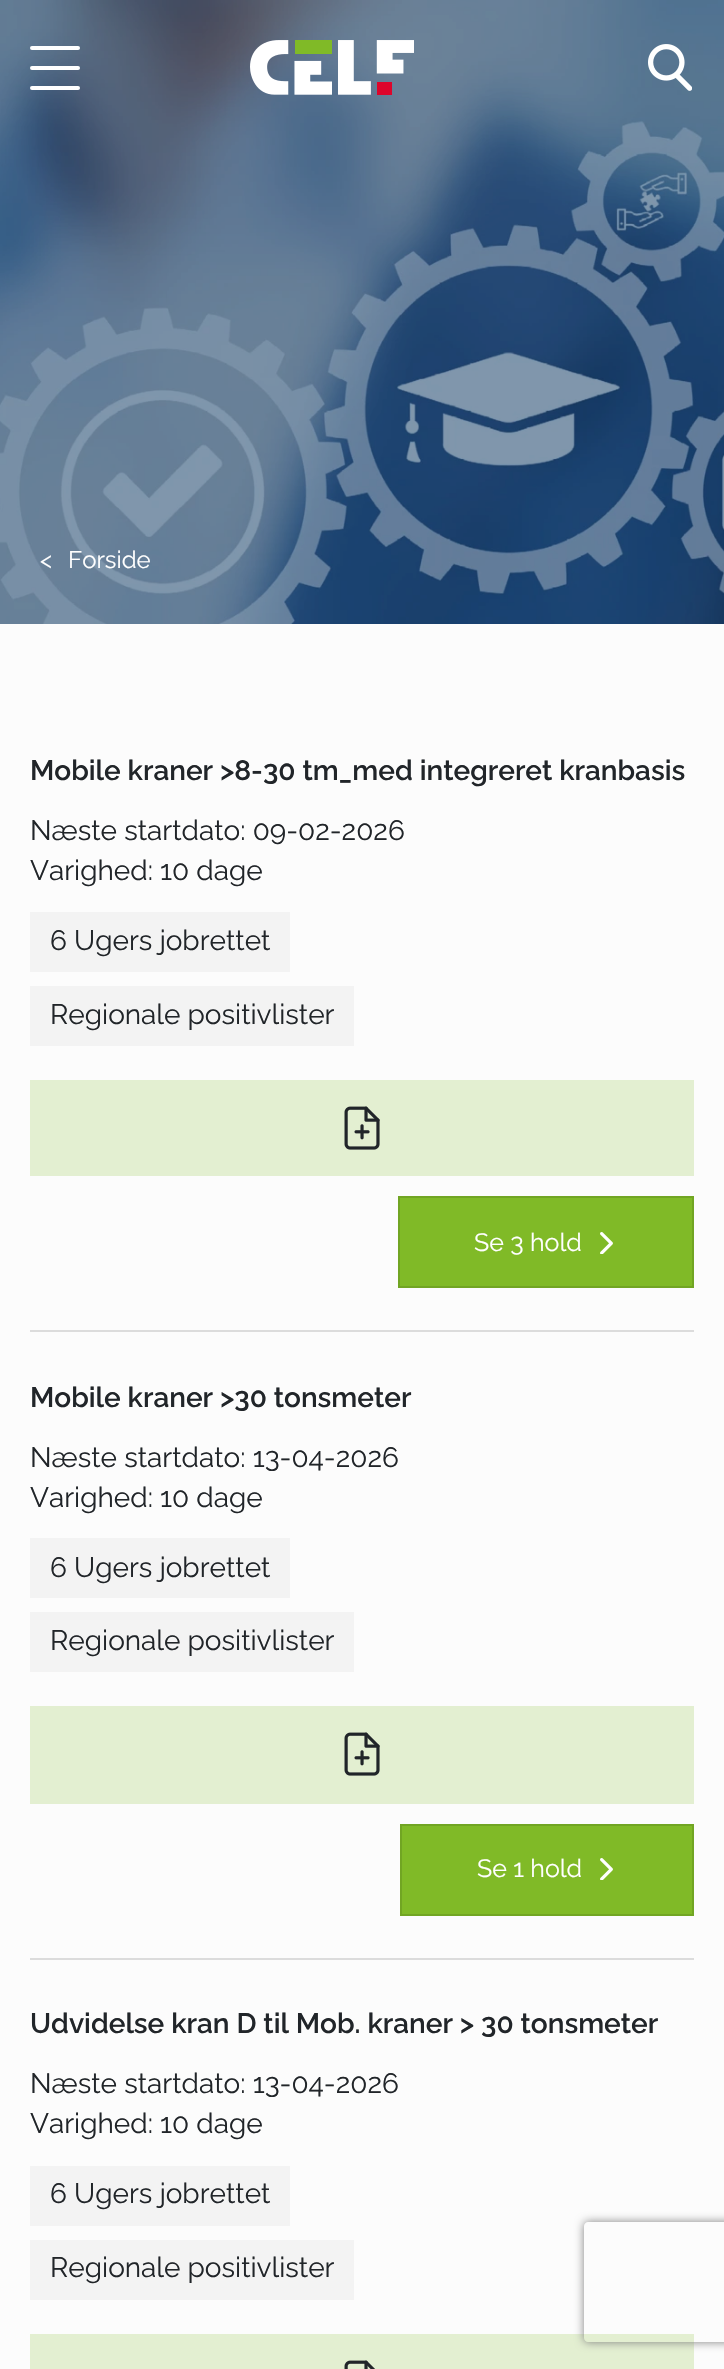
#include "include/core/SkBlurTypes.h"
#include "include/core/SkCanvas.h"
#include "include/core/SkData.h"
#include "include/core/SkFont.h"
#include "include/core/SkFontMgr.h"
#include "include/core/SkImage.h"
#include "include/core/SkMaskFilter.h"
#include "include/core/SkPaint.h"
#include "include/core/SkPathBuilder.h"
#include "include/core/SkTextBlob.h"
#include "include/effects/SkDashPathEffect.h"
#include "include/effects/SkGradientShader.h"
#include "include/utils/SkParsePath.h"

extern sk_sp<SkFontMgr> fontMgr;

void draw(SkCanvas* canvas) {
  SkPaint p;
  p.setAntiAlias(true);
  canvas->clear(SK_ColorWHITE);
  canvas->drawImageRect(SkImages::DeferredFromEncodedData(SkData::MakeFromFileName("images/1.png")), SkRect::MakeLTRB(0, 0, 724, 624), SkSamplingOptions());
  p.setColor(SK_ColorWHITE);
  canvas->drawRoundRect(SkRect::MakeLTRB(30, 46, 80, 50), 2, 2, p);
  canvas->drawRoundRect(SkRect::MakeLTRB(30, 66, 80, 70), 2, 2, p);
  canvas->drawRoundRect(SkRect::MakeLTRB(30, 86, 80, 90), 2, 2, p);
  canvas->drawImageRect(SkImages::DeferredFromEncodedData(SkData::MakeFromFileName("images/2.png")), SkRect::MakeLTRB(250, 40, 414, 95), SkSamplingOptions());
  canvas->drawImageRect(SkImages::DeferredFromEncodedData(SkData::MakeFromFileName("images/3.png")), SkRect::MakeLTRB(648, 44, 692, 91), SkSamplingOptions());
  p.setColor(SkColorSetRGB(252, 252, 252));
  canvas->drawRect(SkRect::MakeLTRB(0, 624, 724, 2369), p);
  p.setColor(SkColorSetRGB(220, 220, 220));
  canvas->drawRect(SkRect::MakeLTRB(30, 1330, 694, 1332), p);
  p.setColor(SkColorSetRGB(243, 243, 243));
  canvas->drawRect(SkRect::MakeLTRB(30, 912, 290, 972), p);
  canvas->drawRect(SkRect::MakeLTRB(30, 986, 354, 1046), p);
  p.setColor(SkColorSetRGB(227, 239, 209));
  canvas->drawRect(SkRect::MakeLTRB(30, 1080, 694, 1176), p);
  canvas->drawImageRect(SkImages::DeferredFromEncodedData(SkData::MakeFromFileName("images/4.png")), SkRect::MakeLTRB(344, 1106, 380, 1150), SkSamplingOptions());
  p.setColor(SkColorSetRGB(128, 186, 39));
  canvas->drawRect(SkRect::MakeLTRB(399, 1197, 693, 1287), p);
  p.setStyle(SkPaint::kStroke_Style);
  p.setStrokeWidth(2);
  p.setColor(SkColorSetRGB(113, 165, 35));
  canvas->drawRect(SkRect::MakeLTRB(399, 1197, 693, 1287), p);
  canvas->drawImageRect(SkImages::DeferredFromEncodedData(SkData::MakeFromFileName("images/5.png")), SkRect::MakeLTRB(600, 1232, 613, 1254), SkSamplingOptions());
  p.setStyle(SkPaint::kFill_Style);
  p.setColor(SkColorSetRGB(220, 220, 220));
  canvas->drawRect(SkRect::MakeLTRB(30, 1958, 694, 1960), p);
  p.setColor(SkColorSetRGB(243, 243, 243));
  canvas->drawRect(SkRect::MakeLTRB(30, 1538, 290, 1598), p);
  canvas->drawRect(SkRect::MakeLTRB(30, 1612, 354, 1672), p);
  p.setColor(SkColorSetRGB(227, 239, 209));
  canvas->drawRect(SkRect::MakeLTRB(30, 1706, 694, 1804), p);
  canvas->drawImageRect(SkImages::DeferredFromEncodedData(SkData::MakeFromFileName("images/4.png")), SkRect::MakeLTRB(344, 1732, 380, 1776), SkSamplingOptions());
  p.setColor(SkColorSetRGB(128, 186, 39));
  canvas->drawRect(SkRect::MakeLTRB(401, 1825, 693, 1915), p);
  p.setStyle(SkPaint::kStroke_Style);
  p.setColor(SkColorSetRGB(113, 165, 35));
  canvas->drawRect(SkRect::MakeLTRB(401, 1825, 693, 1915), p);
  canvas->drawImageRect(SkImages::DeferredFromEncodedData(SkData::MakeFromFileName("images/5.png")), SkRect::MakeLTRB(600, 1858, 613, 1880), SkSamplingOptions());
  p.setStyle(SkPaint::kFill_Style);
  p.setColor(SkColorSetRGB(243, 243, 243));
  canvas->drawRect(SkRect::MakeLTRB(30, 2166, 290, 2226), p);
  canvas->drawRect(SkRect::MakeLTRB(30, 2240, 354, 2300), p);
  p.setColor(SkColorSetRGB(227, 239, 209));
  canvas->drawRect(SkRect::MakeLTRB(30, 2334, 694, 2369), p);
  canvas->drawImageRect(SkImages::DeferredFromEncodedData(SkData::MakeFromFileName("images/6.png")), SkRect::MakeLTRB(344, 2360, 375, 2369), SkSamplingOptions());
  canvas->save();
  canvas->clipPath(SkPathBuilder(SkPathFillType::kEvenOdd).moveTo(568, 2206).lineTo(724, 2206).lineTo(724, 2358).lineTo(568, 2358).close().moveTo(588, 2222).lineTo(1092, 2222).cubicTo(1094, 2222, 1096, 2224, 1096, 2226).lineTo(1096, 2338).cubicTo(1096, 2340, 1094, 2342, 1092, 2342).lineTo(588, 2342).cubicTo(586, 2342, 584, 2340, 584, 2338).lineTo(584, 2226).cubicTo(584, 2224, 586, 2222, 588, 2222).close().detach(), true);
  p.setColor(SkColorSetRGB(128, 128, 128));
  p.setMaskFilter(SkMaskFilter::MakeBlur(kNormal_SkBlurStyle, 5));
  canvas->drawRoundRect(SkRect::MakeLTRB(584, 2222, 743, 2342), 4, 4, p);
  p.setMaskFilter(nullptr);
  canvas->restore();
  SkFont font1(fontMgr->matchFamilyStyle("Raleway", SkFontStyle::Normal()), 24);
  font1.setSubpixel(true);
  p.setColor(SK_ColorWHITE);
  canvas->drawString("<", 40, 568, font1, p);
  canvas->drawString("Forside", 68, 568, font1, p);
  SkFont font2(fontMgr->matchFamilyStyle("Raleway", SkFontStyle(600, SkFontStyle::kNormal_Width, SkFontStyle::kUpright_Slant)), 28);
  font2.setSubpixel(true);
  p.setColor(SkColorSetRGB(33, 37, 41));
  canvas->drawString("Mobile kraner >8-30 tm_med integreret kranbasis", 30, 780, font2, p);
  SkFont font3(fontMgr->matchFamilyStyle("Raleway", SkFontStyle::Normal()), 28);
  font3.setSubpixel(true);
  canvas->drawString("Næste startdato: 09-02-2026", 30, 840, font3, p);
  canvas->drawString("Varighed: 10 dage", 30, 880, font3, p);
  canvas->drawString("6 Ugers jobrettet", 50, 950, font3, p);
  canvas->drawString("Regionale positivlister", 50, 1024, font3, p);
  SkFont font4(fontMgr->matchFamilyStyle("Raleway", SkFontStyle::Normal()), 25);
  font4.setSubpixel(true);
  p.setColor(SK_ColorWHITE);
  canvas->drawString("Se 3 hold", 474, 1251, font4, p);
  p.setColor(SkColorSetRGB(33, 37, 41));
  canvas->drawString("Mobile kraner >30 tonsmeter", 30, 1407, font2, p);
  canvas->drawString("Næste startdato: 13-04-2026", 30, 1467, font3, p);
  canvas->drawString("Varighed: 10 dage", 30, 1507, font3, p);
  canvas->drawString("6 Ugers jobrettet", 50, 1577, font3, p);
  canvas->drawString("Regionale positivlister", 50, 1650, font3, p);
  p.setColor(SK_ColorWHITE);
  canvas->drawString("Se 1 hold", 477, 1877, font4, p);
  p.setColor(SkColorSetRGB(33, 37, 41));
  canvas->drawString("Udvidelse kran D til Mob. kraner > 30 tonsmeter", 30, 2033, font2, p);
  canvas->drawString("Næste startdato: 13-04-2026", 30, 2093, font3, p);
  canvas->drawString("Varighed: 10 dage", 30, 2133, font3, p);
  canvas->drawString("6 Ugers jobrettet", 50, 2203, font3, p);
  canvas->drawString("Regionale positivlister", 50, 2277, font3, p);
}
